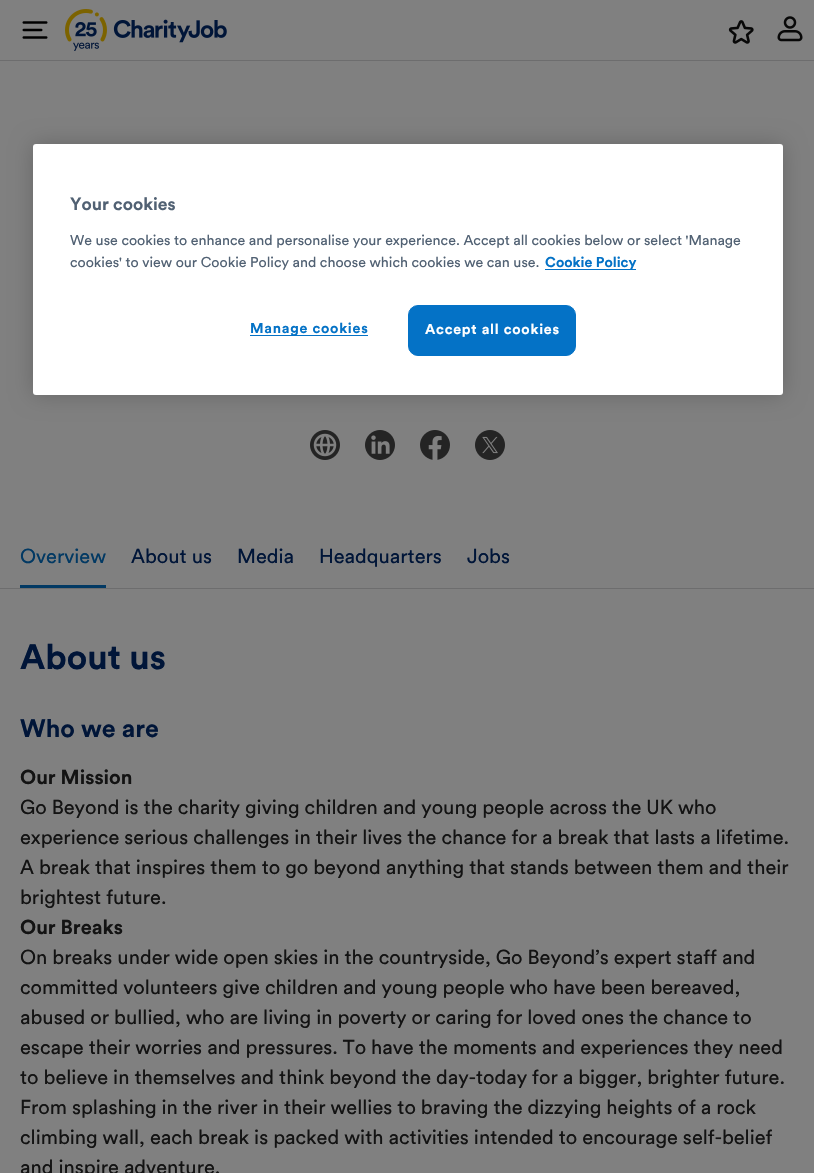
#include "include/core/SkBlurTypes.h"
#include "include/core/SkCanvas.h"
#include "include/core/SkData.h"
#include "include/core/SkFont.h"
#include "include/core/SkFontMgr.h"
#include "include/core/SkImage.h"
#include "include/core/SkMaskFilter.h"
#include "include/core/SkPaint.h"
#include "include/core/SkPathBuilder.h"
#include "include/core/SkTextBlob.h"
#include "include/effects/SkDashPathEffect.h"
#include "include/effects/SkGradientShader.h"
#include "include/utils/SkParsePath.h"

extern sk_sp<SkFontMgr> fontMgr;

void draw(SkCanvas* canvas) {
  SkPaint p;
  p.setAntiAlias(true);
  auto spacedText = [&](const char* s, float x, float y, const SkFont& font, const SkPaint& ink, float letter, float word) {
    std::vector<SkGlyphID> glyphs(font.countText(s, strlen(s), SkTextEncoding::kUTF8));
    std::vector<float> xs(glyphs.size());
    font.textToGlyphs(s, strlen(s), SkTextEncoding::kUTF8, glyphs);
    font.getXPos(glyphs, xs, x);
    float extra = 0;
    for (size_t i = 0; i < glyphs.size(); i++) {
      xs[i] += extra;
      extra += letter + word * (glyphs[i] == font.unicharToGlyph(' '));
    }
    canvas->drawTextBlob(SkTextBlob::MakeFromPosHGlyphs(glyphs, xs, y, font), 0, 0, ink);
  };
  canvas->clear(SkColorSetRGB(128, 128, 128));
  p.setColor(SkColorSetRGB(109, 109, 110));
  canvas->drawRect(SkRect::MakeLTRB(0, 60, 814, 61), p);
  canvas->drawImageRect(SkImages::DeferredFromEncodedData(SkData::MakeFromFileName("images/1.png")), SkRect::MakeLTRB(22, 21, 48, 39), SkSamplingOptions());
  canvas->drawImageRect(SkImages::DeferredFromEncodedData(SkData::MakeFromFileName("images/2.png")), SkRect::MakeLTRB(65, 9, 227, 51), SkSamplingOptions());
  canvas->drawImageRect(SkImages::DeferredFromEncodedData(SkData::MakeFromFileName("images/3.png")), SkRect::MakeLTRB(728, 20, 754, 44), SkSamplingOptions());
  canvas->drawImageRect(SkImages::DeferredFromEncodedData(SkData::MakeFromFileName("images/4.png")), SkRect::MakeLTRB(777, 16, 803, 42), SkSamplingOptions());
  p.setColor(SkColorSetARGB(51, 0, 0, 0));
  p.setMaskFilter(SkMaskFilter::MakeBlur(kNormal_SkBlurStyle, 11));
  canvas->drawRoundRect(SkRect::MakeLTRB(33, 144, 783, 395), 3, 3, p);
  p.setMaskFilter(nullptr);
  p.setColor(SK_ColorWHITE);
  canvas->drawRoundRect(SkRect::MakeLTRB(33, 144, 783, 395), 3, 3, p);
  p.setColor(SkColorSetRGB(4, 114, 198));
  canvas->drawRect(SkRect::MakeLTRB(545, 269, 636, 270), p);
  canvas->drawRect(SkRect::MakeLTRB(250, 335, 368, 336), p);
  canvas->drawRoundRect(SkRect::MakeLTRB(408.5f, 305.5f, 575.5f, 355.5f), 9.5f, 9.5f, p);
  p.setStyle(SkPaint::kStroke_Style);
  p.setStrokeWidth(1);
  canvas->drawRoundRect(SkRect::MakeLTRB(408.5f, 305.5f, 575.5f, 355.5f), 9.5f, 9.5f, p);
  canvas->drawImageRect(SkImages::DeferredFromEncodedData(SkData::MakeFromFileName("images/5.png")), SkRect::MakeLTRB(310, 430, 340, 460), SkSamplingOptions());
  canvas->drawImageRect(SkImages::DeferredFromEncodedData(SkData::MakeFromFileName("images/6.png")), SkRect::MakeLTRB(365, 430, 395, 460), SkSamplingOptions());
  canvas->drawImageRect(SkImages::DeferredFromEncodedData(SkData::MakeFromFileName("images/7.png")), SkRect::MakeLTRB(420, 430, 450, 460), SkSamplingOptions());
  canvas->drawImageRect(SkImages::DeferredFromEncodedData(SkData::MakeFromFileName("images/8.png")), SkRect::MakeLTRB(475, 430, 505, 460), SkSamplingOptions());
  p.setStyle(SkPaint::kFill_Style);
  p.setColor(SkColorSetRGB(109, 109, 110));
  canvas->drawRect(SkRect::MakeLTRB(0, 588, 814, 589), p);
  p.setColor(SkColorSetRGB(2, 57, 99));
  canvas->drawRect(SkRect::MakeLTRB(20, 585, 106, 588), p);
  SkFont font1(fontMgr->matchFamilyStyle("Circular", SkFontStyle::Bold()), 17.5f);
  font1.setSubpixel(true);
  p.setColor(SkColorSetRGB(81, 97, 115));
  canvas->drawString("Your cookies", 70, 210, font1, p);
  SkFont font2(fontMgr->matchFamilyStyle("Circular", SkFontStyle::Normal()), 14.25f);
  font2.setSubpixel(true);
  canvas->drawString("We use cookies to enhance and personalise your experience. Accept all cookies below or select 'Manage", 70, 245, font2, p);
  canvas->drawString("cookies' to view our Cookie Policy and choose which cookies we can use.", 70, 267, font2, p);
  SkFont font3(fontMgr->matchFamilyStyle("Circular", SkFontStyle::Bold()), 14.25f);
  font3.setSubpixel(true);
  p.setColor(SkColorSetRGB(4, 114, 198));
  canvas->drawString("Cookie Policy", 545, 267, font3, p);
  spacedText("Manage cookies", 250, 333, font3, p, 0.75f, 0);
  p.setColor(SK_ColorWHITE);
  spacedText("Accept all cookies", 425, 334, font3, p, 0.75f, 0);
  SkFont font4(fontMgr->matchFamilyStyle("Circular", SkFontStyle::Normal()), 20);
  font4.setSubpixel(true);
  p.setColor(SkColorSetRGB(2, 57, 99));
  canvas->drawString("Overview", 20, 563, font4, p);
  p.setColor(SkColorSetRGB(0, 21, 56));
  canvas->drawString("About us", 131, 563, font4, p);
  canvas->drawString("Media", 237, 563, font4, p);
  canvas->drawString("Headquarters", 319, 563, font4, p);
  canvas->drawString("Jobs", 467, 563, font4, p);
  SkFont font5(fontMgr->matchFamilyStyle("Circular", SkFontStyle::Bold()), 35);
  font5.setSubpixel(true);
  canvas->drawString("About us", 20, 669, font5, p);
  SkFont font6(fontMgr->matchFamilyStyle("Circular", SkFontStyle::Bold()), 25);
  font6.setSubpixel(true);
  canvas->drawString("Who we are", 20, 737, font6, p);
  SkFont font7(fontMgr->matchFamilyStyle("Circular", SkFontStyle::Bold()), 20);
  font7.setSubpixel(true);
  p.setColor(SkColorSetRGB(19, 19, 19));
  canvas->drawString("Our Mission", 20, 784, font7, p);
  canvas->drawString("Go Beyond is the charity giving children and young people across the UK who", 20, 814, font4, p);
  canvas->drawString("experience serious challenges in their lives the chance for a break that lasts a lifetime.", 20, 844, font4, p);
  canvas->drawString("A break that inspires them to go beyond anything that stands between them and their", 20, 874, font4, p);
  canvas->drawString("brightest future.", 20, 904, font4, p);
  canvas->drawString("Our Breaks", 20, 934, font7, p);
  canvas->drawString("On breaks under wide open skies in the countryside, Go Beyond’s expert staff and", 20, 964, font4, p);
  canvas->drawString("committed volunteers give children and young people who have been bereaved,", 20, 994, font4, p);
  canvas->drawString("abused or bullied, who are living in poverty or caring for loved ones the chance to", 20, 1024, font4, p);
  canvas->drawString("escape their worries and pressures. To have the moments and experiences they need", 20, 1054, font4, p);
  canvas->drawString("to believe in themselves and think beyond the day-today for a bigger, brighter future.", 20, 1084, font4, p);
  canvas->drawString("From splashing in the river in their wellies to braving the dizzying heights of a rock", 20, 1114, font4, p);
  canvas->drawString("climbing wall, each break is packed with activities intended to encourage self-belief", 20, 1144, font4, p);
  canvas->drawString("and inspire adventure.", 20, 1174, font4, p);
}
